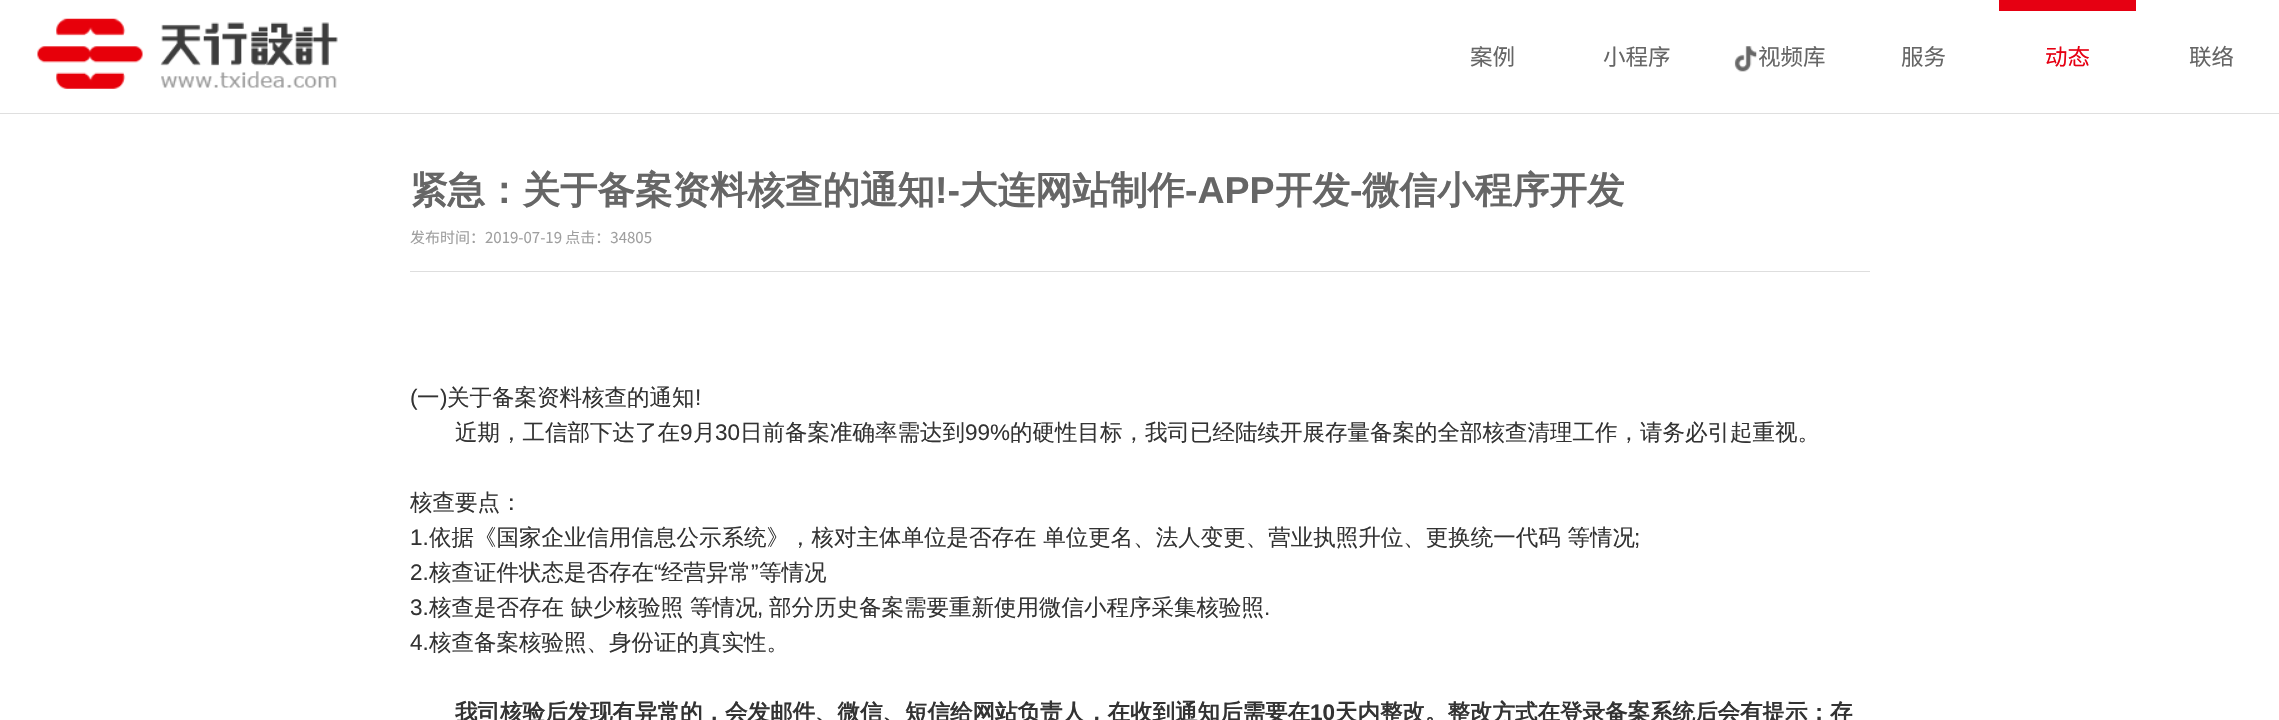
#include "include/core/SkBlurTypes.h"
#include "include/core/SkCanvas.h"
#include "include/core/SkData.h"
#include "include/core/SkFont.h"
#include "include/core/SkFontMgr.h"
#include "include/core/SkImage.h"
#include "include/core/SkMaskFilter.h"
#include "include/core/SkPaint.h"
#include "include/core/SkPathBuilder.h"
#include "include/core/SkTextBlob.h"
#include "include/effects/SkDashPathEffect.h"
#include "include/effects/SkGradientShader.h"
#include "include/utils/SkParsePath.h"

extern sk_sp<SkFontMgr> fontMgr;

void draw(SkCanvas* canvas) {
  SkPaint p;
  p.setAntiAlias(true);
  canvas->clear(SK_ColorWHITE);
  p.setColor(SkColorSetRGB(223, 223, 223));
  canvas->drawRect(SkRect::MakeLTRB(0, 113, 2279, 114), p);
  canvas->drawImageRect(SkImages::DeferredFromEncodedData(SkData::MakeFromFileName("images/1.png")), SkRect::MakeLTRB(37, 18, 338, 89), SkSamplingOptions());
  canvas->drawImageRect(SkImages::DeferredFromEncodedData(SkData::MakeFromFileName("images/2.png")), SkRect::MakeLTRB(1734, 46, 1757, 72), SkSamplingOptions());
  p.setColor(SkColorSetRGB(230, 0, 18));
  canvas->drawRect(SkRect::MakeLTRB(1999, 0, 2136, 11), p);
  p.setColor(SkColorSetRGB(222, 222, 222));
  canvas->drawRect(SkRect::MakeLTRB(410, 271, 1870, 272), p);
  SkFont font1(fontMgr->matchFamilyStyle("Noto Sans CJK SC", SkFontStyle::Normal()), 22.5f);
  font1.setSubpixel(true);
  p.setColor(SkColorSetRGB(102, 102, 102));
  canvas->drawString("案例", 1470, 65, font1, p);
  canvas->drawString("小程序", 1603, 65, font1, p);
  canvas->drawString("视频库", 1758, 65, font1, p);
  canvas->drawString("服务", 1901, 65, font1, p);
  p.setColor(SkColorSetRGB(230, 0, 18));
  canvas->drawString("动态", 2045, 65, font1, p);
  p.setColor(SkColorSetRGB(102, 102, 102));
  canvas->drawString("联络", 2189, 65, font1, p);
  SkFont font2(fontMgr->matchFamilyStyle("WenQuanYi Zen Hei", SkFontStyle::Bold()), 37.5f);
  font2.setSubpixel(true);
  canvas->drawString("紧急：关于备案资料核查的通知", 410, 203, font2, p);
  SkFont font3(fontMgr->matchFamilyStyle("Liberation Sans", SkFontStyle::Bold()), 37.5f);
  font3.setSubpixel(true);
  canvas->drawString("!-", 935, 203, font3, p);
  canvas->drawString("大连网站制作", 960, 203, font2, p);
  canvas->drawString("-APP", 1185, 203, font3, p);
  canvas->drawString("开发", 1275, 203, font2, p);
  canvas->drawString("-", 1350, 203, font3, p);
  canvas->drawString("微信小程序开发", 1362, 203, font2, p);
  SkFont font4(fontMgr->matchFamilyStyle("Noto Sans CJK SC", SkFontStyle::Normal()), 15);
  font4.setSubpixel(true);
  p.setColor(SkColorSetRGB(159, 159, 159));
  canvas->drawString("发布时间：2019-07-19 点击：34805", 410, 243, font4, p);
  SkFont font5(fontMgr->matchFamilyStyle("Liberation Sans", SkFontStyle::Normal()), 22.5f);
  font5.setSubpixel(true);
  p.setColor(SkColorSetRGB(51, 51, 51));
  canvas->drawString("(", 410, 405, font5, p);
  SkFont font6(fontMgr->matchFamilyStyle("WenQuanYi Zen Hei", SkFontStyle(500, SkFontStyle::kNormal_Width, SkFontStyle::kUpright_Slant)), 22.5f);
  font6.setSubpixel(true);
  canvas->drawString("一", 417, 405, font6, p);
  canvas->drawString(")", 440, 405, font5, p);
  canvas->drawString("关于备案资料核查的通知", 447, 405, font6, p);
  canvas->drawString("!", 695, 405, font5, p);
  canvas->drawString("近期，工信部下达了在", 455, 440, font6, p);
  canvas->drawString("9", 680, 440, font5, p);
  canvas->drawString("月", 693, 440, font6, p);
  canvas->drawString("30", 715, 440, font5, p);
  canvas->drawString("日前备案准确率需达到", 740, 440, font6, p);
  canvas->drawString("99%", 965, 440, font5, p);
  canvas->drawString("的硬性目标，我司已经陆续开展存量备案的全部核查清理工作，请务必引起重视。", 1010, 440, font6, p);
  canvas->drawString("核查要点：", 410, 510, font6, p);
  canvas->drawString("1.", 410, 545, font5, p);
  canvas->drawString("依据《国家企业信用信息公示系统》，核对主体单位是否存在 单位更名、法人变更、营业执照升位、更换统一代码 等情况", 429, 545, font6, p);
  canvas->drawString(";", 1634, 545, font5, p);
  canvas->drawString("2.", 410, 580, font5, p);
  canvas->drawString("核查证件状态是否存在", 429, 580, font6, p);
  canvas->drawString("“", 654, 580, font5, p);
  canvas->drawString("经营异常", 661, 580, font6, p);
  canvas->drawString("”", 751, 580, font5, p);
  canvas->drawString("等情况", 759, 580, font6, p);
  canvas->drawString("3.", 410, 615, font5, p);
  canvas->drawString("核查是否存在 缺少核验照 等情况", 429, 615, font6, p);
  canvas->drawString(",", 757, 615, font5, p);
  canvas->drawString("部分历史备案需要重新使用微信小程序采集核验照", 769, 615, font6, p);
  canvas->drawString(".", 1264, 615, font5, p);
  canvas->drawString("4.", 410, 650, font5, p);
  canvas->drawString("核查备案核验照、身份证的真实性。", 429, 650, font6, p);
  SkFont font7(fontMgr->matchFamilyStyle("WenQuanYi Zen Hei", SkFontStyle::Bold()), 22.5f);
  font7.setSubpixel(true);
  canvas->drawString("我司核验后发现有异常的，会发邮件、微信、短信给网站负责人，在收到通知后需要在", 455, 720, font7, p);
  SkFont font8(fontMgr->matchFamilyStyle("Liberation Sans", SkFontStyle::Bold()), 22.5f);
  font8.setSubpixel(true);
  canvas->drawString("10", 1310, 720, font8, p);
  canvas->drawString("天内整改。整改方式在登录备案系统后会有提示：存", 1335, 720, font7, p);
}
